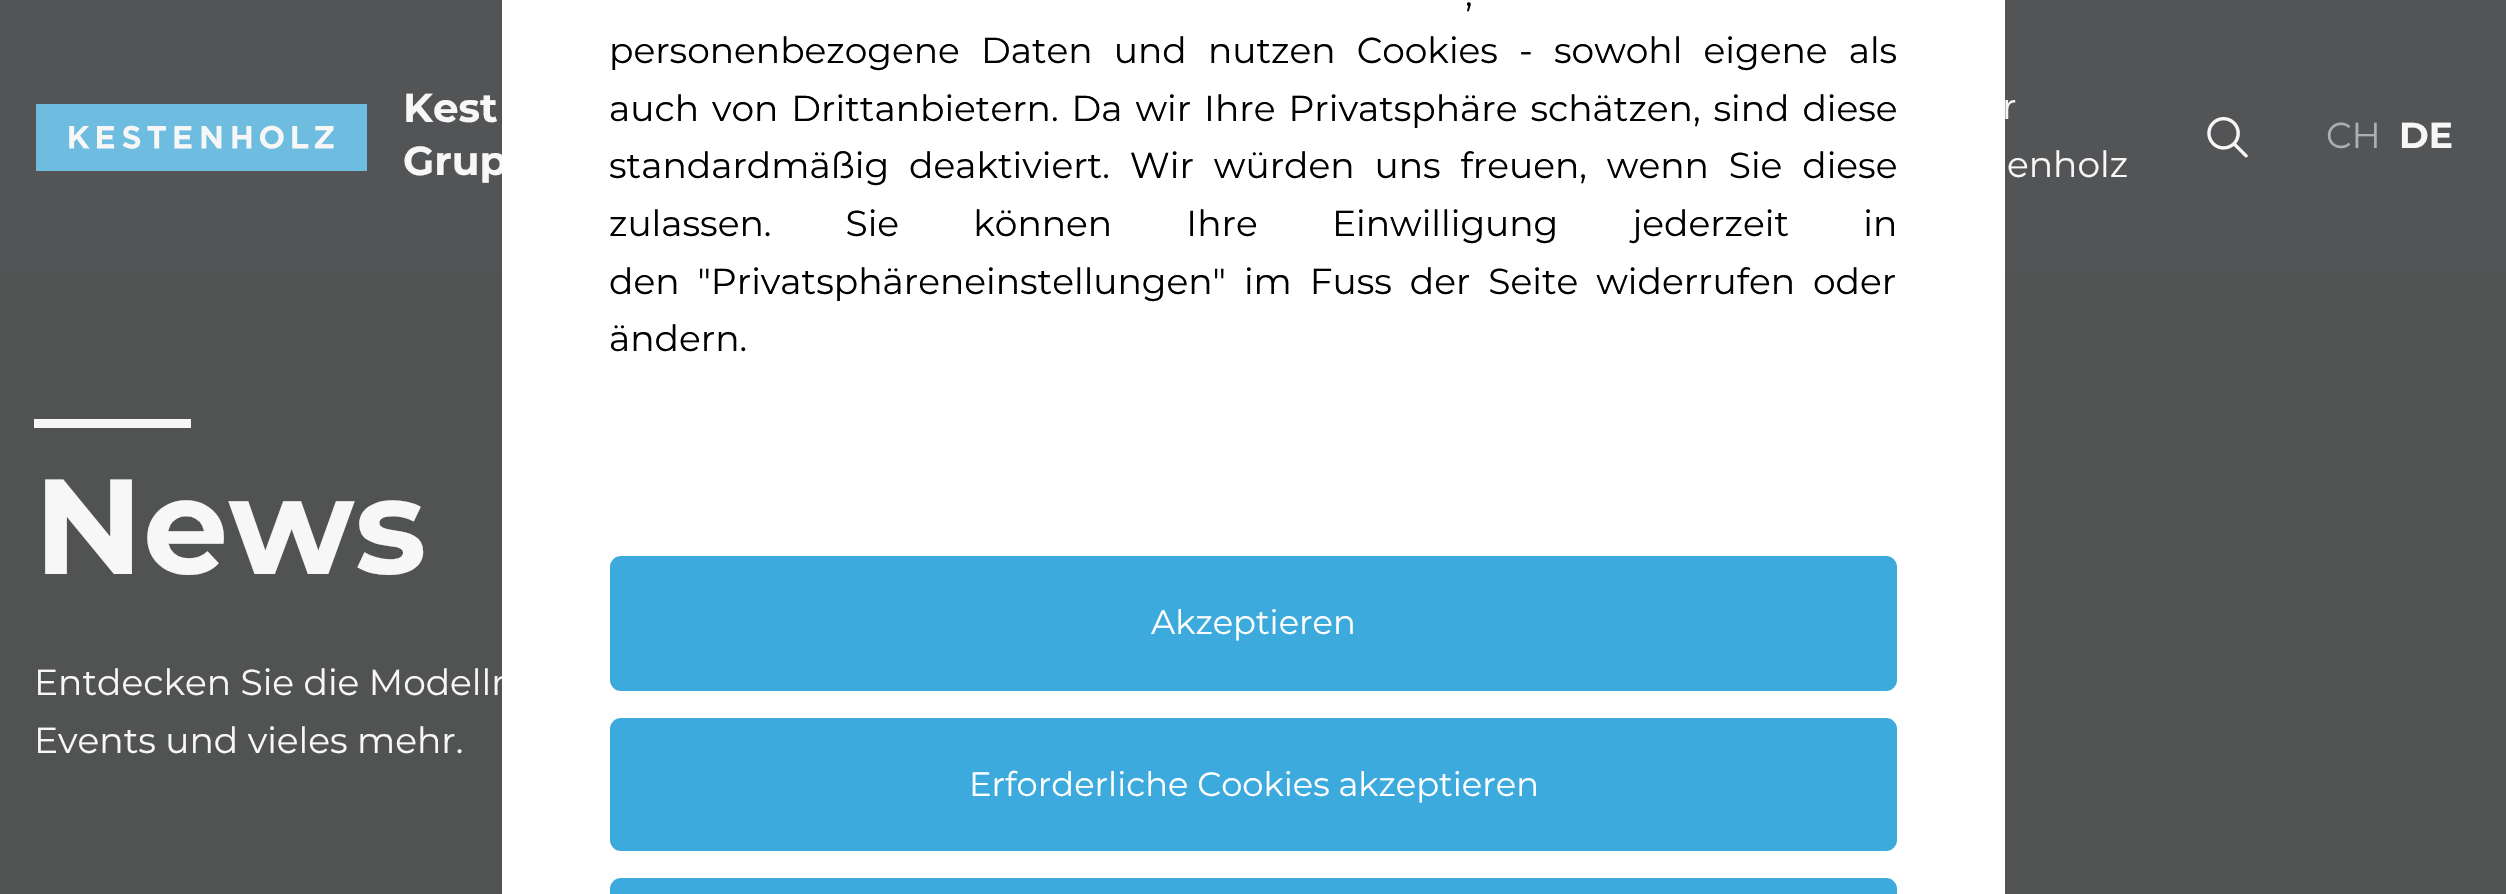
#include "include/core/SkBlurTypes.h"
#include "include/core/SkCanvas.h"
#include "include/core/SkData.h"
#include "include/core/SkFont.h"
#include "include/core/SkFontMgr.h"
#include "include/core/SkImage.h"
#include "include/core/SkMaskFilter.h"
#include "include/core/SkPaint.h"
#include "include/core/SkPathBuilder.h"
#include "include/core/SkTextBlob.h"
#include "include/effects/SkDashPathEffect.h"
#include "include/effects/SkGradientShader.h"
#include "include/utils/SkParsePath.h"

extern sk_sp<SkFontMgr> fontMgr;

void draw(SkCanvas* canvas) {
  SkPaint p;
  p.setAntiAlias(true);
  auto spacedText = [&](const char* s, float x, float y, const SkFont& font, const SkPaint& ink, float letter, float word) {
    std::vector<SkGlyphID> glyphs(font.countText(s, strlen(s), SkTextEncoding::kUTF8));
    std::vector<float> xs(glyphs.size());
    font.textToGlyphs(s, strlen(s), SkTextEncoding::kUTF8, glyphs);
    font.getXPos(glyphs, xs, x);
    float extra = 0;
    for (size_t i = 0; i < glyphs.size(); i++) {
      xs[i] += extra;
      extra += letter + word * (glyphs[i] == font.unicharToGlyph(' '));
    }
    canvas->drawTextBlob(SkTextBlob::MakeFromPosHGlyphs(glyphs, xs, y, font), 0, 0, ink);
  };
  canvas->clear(SkColorSetRGB(81, 82, 82));
  p.setColor(SkColorSetRGB(83, 84, 85));
  canvas->drawRect(SkRect::MakeLTRB(0, 0, 2506, 272), p);
  canvas->drawImageRect(SkImages::DeferredFromEncodedData(SkData::MakeFromFileName("images/1.png")), SkRect::MakeLTRB(36, 104, 367, 171), SkSamplingOptions());
  canvas->drawImageRect(SkImages::DeferredFromEncodedData(SkData::MakeFromFileName("images/2.png")), SkRect::MakeLTRB(2207, 117, 2248, 158), SkSamplingOptions());
  p.setColor(SkColorSetRGB(247, 247, 248));
  canvas->drawRect(SkRect::MakeLTRB(34, 419, 191, 428), p);
  SkFont font1(fontMgr->matchFamilyStyle("Montserrat", SkFontStyle::Bold()), 40.5f);
  font1.setSubpixel(true);
  canvas->drawString("Kest", 403, 122, font1, p);
  canvas->drawString("Grup", 403, 175, font1, p);
  SkFont font2(fontMgr->matchFamilyStyle("Montserrat", SkFontStyle::Normal()), 36);
  font2.setSubpixel(true);
  canvas->drawString("r", 2002, 119, font2, p);
  canvas->drawString("enholz", 2007, 177, font2, p);
  p.setColor(SkColorSetRGB(172, 174, 175));
  canvas->drawString("CH", 2326, 148, font2, p);
  SkFont font3(fontMgr->matchFamilyStyle("Montserrat", SkFontStyle::Bold()), 36);
  font3.setSubpixel(true);
  p.setColor(SkColorSetRGB(247, 247, 248));
  canvas->drawString("DE", 2399, 148, font3, p);
  SkFont font4(fontMgr->matchFamilyStyle("Montserrat", SkFontStyle::Bold()), 135);
  font4.setSubpixel(true);
  canvas->drawString("News", 34, 574, font4, p);
  canvas->drawString("Entdecken Sie die Modelln", 34, 695, font2, p);
  p.setColor(SK_ColorWHITE);
  canvas->drawRect(SkRect::MakeLTRB(502, 0, 2005, 894), p);
  p.setColor(SkColorSetRGB(60, 170, 220));
  canvas->drawRoundRect(SkRect::MakeLTRB(611, 879, 1896, 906), 10, 10, p);
  p.setStyle(SkPaint::kStroke_Style);
  p.setStrokeWidth(2);
  canvas->drawRoundRect(SkRect::MakeLTRB(611, 879, 1896, 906), 10, 10, p);
  p.setStyle(SkPaint::kFill_Style);
  canvas->drawRoundRect(SkRect::MakeLTRB(611, 719, 1896, 850), 10, 10, p);
  p.setStyle(SkPaint::kStroke_Style);
  canvas->drawRoundRect(SkRect::MakeLTRB(611, 719, 1896, 850), 10, 10, p);
  SkFont font5(fontMgr->matchFamilyStyle("Montserrat", SkFontStyle::Normal()), 33.75f);
  font5.setSubpixel(true);
  p.setStyle(SkPaint::kFill_Style);
  p.setColor(SK_ColorWHITE);
  canvas->drawString("Erforderliche Cookies akzeptieren", 969, 796, font5, p);
  p.setColor(SkColorSetRGB(60, 170, 220));
  canvas->drawRoundRect(SkRect::MakeLTRB(611, 557, 1896, 690), 10, 10, p);
  p.setStyle(SkPaint::kStroke_Style);
  canvas->drawRoundRect(SkRect::MakeLTRB(611, 557, 1896, 690), 10, 10, p);
  p.setStyle(SkPaint::kFill_Style);
  p.setColor(SK_ColorWHITE);
  canvas->drawString("Akzeptieren", 1151, 634, font5, p);
  p.setColor(SK_ColorBLACK);
  canvas->drawString("ändern.", 609, 351, font2, p);
  spacedText("den \"Privatsphäreneinstellungen\" im Fuss der Seite widerrufen oder", 609, 294, font2, p, 0, 8.5f);
  spacedText("zulassen. Sie können Ihre Einwilligung jederzeit in", 609, 236, font2, p, 0, 64.75f);
  spacedText("standardmäßig deaktiviert. Wir würden uns freuen, wenn Sie diese", 609, 178, font2, p, 0, 10.5f);
  spacedText("auch von Drittanbietern. Da wir Ihre Privatsphäre schätzen, sind diese", 609, 121, font2, p, 0, 3.5f);
  spacedText("personenbezogene Daten und nutzen Cookies - sowohl eigene als", 609, 63, font2, p, 0, 11.75f);
  spacedText(",", 1465, 6, font2, p, 0, 71);
  p.setColor(SkColorSetRGB(247, 247, 248));
  canvas->drawString("Events und vieles mehr.", 34, 753, font2, p);
}
